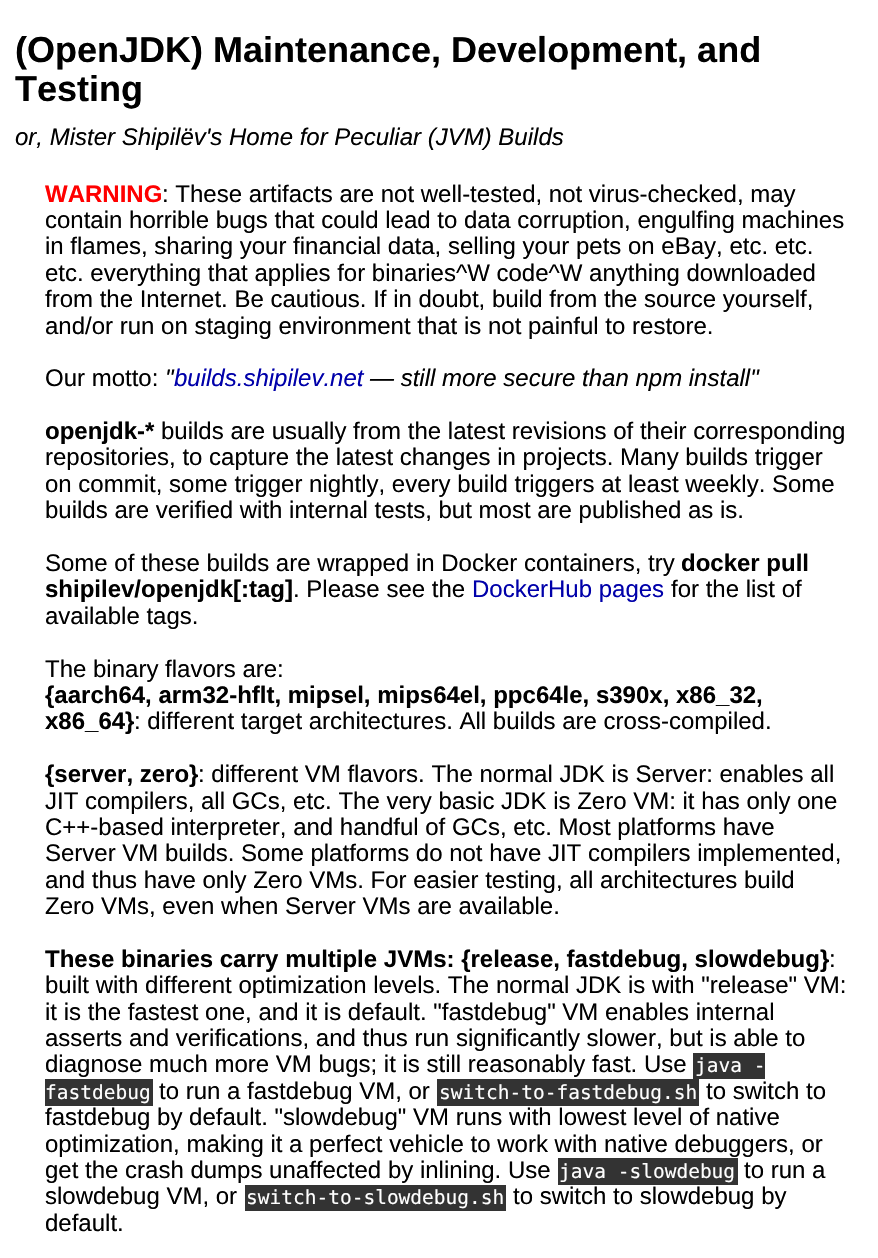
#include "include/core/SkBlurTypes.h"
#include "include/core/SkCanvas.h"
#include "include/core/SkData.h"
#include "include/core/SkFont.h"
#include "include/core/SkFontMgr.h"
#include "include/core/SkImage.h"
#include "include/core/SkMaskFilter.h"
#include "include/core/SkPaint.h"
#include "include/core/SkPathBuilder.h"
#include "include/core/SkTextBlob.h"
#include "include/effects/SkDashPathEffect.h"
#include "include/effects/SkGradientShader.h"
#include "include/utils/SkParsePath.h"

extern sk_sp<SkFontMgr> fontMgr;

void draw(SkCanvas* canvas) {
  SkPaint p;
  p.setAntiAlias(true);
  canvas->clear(SK_ColorWHITE);
  p.setColor(SkColorSetRGB(51, 51, 51));
  canvas->drawRect(SkRect::MakeLTRB(693, 1053, 765, 1079), p);
  canvas->drawRect(SkRect::MakeLTRB(45, 1079, 153, 1106), p);
  canvas->drawRect(SkRect::MakeLTRB(437, 1079, 699, 1106), p);
  canvas->drawRect(SkRect::MakeLTRB(558, 1158, 738, 1185), p);
  canvas->drawRect(SkRect::MakeLTRB(245, 1185, 506, 1211), p);
  SkFont font1(fontMgr->matchFamilyStyle("Liberation Sans", SkFontStyle::Bold()), 36);
  font1.setSubpixel(true);
  p.setColor(SK_ColorBLACK);
  canvas->drawString("(OpenJDK) Maintenance, Development, and", 15, 62, font1, p);
  canvas->drawString("Testing", 15, 101, font1, p);
  SkFont font2(fontMgr->matchFamilyStyle("Liberation Sans", SkFontStyle::Italic()), 24);
  font2.setSubpixel(true);
  canvas->drawString("or, Mister Shipilëv's Home for Peculiar (JVM) Builds", 15, 145, font2, p);
  SkFont font3(fontMgr->matchFamilyStyle("Liberation Sans", SkFontStyle::Bold()), 24);
  font3.setSubpixel(true);
  p.setColor(SkColorSetRGB(255, 0, 0));
  canvas->drawString("WARNING", 45, 202, font3, p);
  SkFont font4(fontMgr->matchFamilyStyle("Liberation Sans", SkFontStyle::Normal()), 24);
  font4.setSubpixel(true);
  p.setColor(SK_ColorBLACK);
  canvas->drawString(": These artifacts are not well-tested, not virus-checked, may", 162, 202, font4, p);
  canvas->drawString("contain horrible bugs that could lead to data corruption, engulfing machines", 45, 228, font4, p);
  canvas->drawString("in flames, sharing your financial data, selling your pets on eBay, etc. etc.", 45, 254, font4, p);
  canvas->drawString("etc. everything that applies for binaries^W code^W anything downloaded", 45, 281, font4, p);
  canvas->drawString("from the Internet. Be cautious. If in doubt, build from the source yourself,", 45, 307, font4, p);
  canvas->drawString("and/or run on staging environment that is not painful to restore.", 45, 334, font4, p);
  canvas->drawString("Our motto:", 45, 386, font4, p);
  canvas->drawString("\"", 165, 386, font2, p);
  p.setColor(SkColorSetRGB(0, 0, 170));
  canvas->drawString("builds.shipilev.net", 174, 386, font2, p);
  p.setColor(SK_ColorBLACK);
  canvas->drawString("— still more secure than npm install\"", 370, 386, font2, p);
  canvas->drawString("openjdk-*", 45, 439, font3, p);
  canvas->drawString("builds are usually from the latest revisions of their corresponding", 161, 439, font4, p);
  canvas->drawString("repositories, to capture the latest changes in projects. Many builds trigger", 45, 465, font4, p);
  canvas->drawString("on commit, some trigger nightly, every build triggers at least weekly. Some", 45, 492, font4, p);
  canvas->drawString("builds are verified with internal tests, but most are published as is.", 45, 518, font4, p);
  canvas->drawString("Some of these builds are wrapped in Docker containers, try", 45, 571, font4, p);
  canvas->drawString("docker pull", 681, 571, font3, p);
  canvas->drawString("shipilev/openjdk[:tag]", 45, 597, font3, p);
  canvas->drawString(". Please see the", 293, 597, font4, p);
  p.setColor(SkColorSetRGB(0, 0, 170));
  canvas->drawString("DockerHub pages", 472, 597, font4, p);
  p.setColor(SK_ColorBLACK);
  canvas->drawString("for the list of", 671, 597, font4, p);
  canvas->drawString("available tags.", 45, 624, font4, p);
  canvas->drawString("The binary flavors are:", 45, 677, font4, p);
  canvas->drawString("{aarch64, arm32-hflt, mipsel, mips64el, ppc64le, s390x, x86_32,", 45, 703, font3, p);
  canvas->drawString("x86_64}", 45, 729, font3, p);
  canvas->drawString(": different target architectures. All builds are cross-compiled.", 134, 729, font4, p);
  canvas->drawString("{server, zero}", 45, 782, font3, p);
  canvas->drawString(": different VM flavors. The normal JDK is Server: enables all", 198, 782, font4, p);
  canvas->drawString("JIT compilers, all GCs, etc. The very basic JDK is Zero VM: it has only one", 45, 809, font4, p);
  canvas->drawString("C++-based interpreter, and handful of GCs, etc. Most platforms have", 45, 835, font4, p);
  canvas->drawString("Server VM builds. Some platforms do not have JIT compilers implemented,", 45, 861, font4, p);
  canvas->drawString("and thus have only Zero VMs. For easier testing, all architectures build", 45, 888, font4, p);
  canvas->drawString("Zero VMs, even when Server VMs are available.", 45, 914, font4, p);
  canvas->drawString("These binaries carry multiple JVMs: {release, fastdebug, slowdebug}", 45, 967, font3, p);
  canvas->drawString(":", 829, 967, font4, p);
  canvas->drawString("built with different optimization levels. The normal JDK is with \"release\" VM:", 45, 993, font4, p);
  canvas->drawString("it is the fastest one, and it is default. \"fastdebug\" VM enables internal", 45, 1020, font4, p);
  canvas->drawString("asserts and verifications, and thus run significantly slower, but is able to", 45, 1046, font4, p);
  canvas->drawString("diagnose much more VM bugs; it is still reasonably fast. Use", 45, 1072, font4, p);
  SkFont font5(fontMgr->matchFamilyStyle("DejaVu Sans Mono", SkFontStyle::Normal()), 19.5f);
  font5.setSubpixel(true);
  p.setColor(SK_ColorWHITE);
  canvas->drawString("java -", 695, 1072, font5, p);
  canvas->drawString("fastdebug", 45, 1099, font5, p);
  p.setColor(SK_ColorBLACK);
  canvas->drawString("to run a fastdebug VM, or", 159, 1099, font4, p);
  p.setColor(SK_ColorWHITE);
  canvas->drawString("switch-to-fastdebug.sh", 439, 1099, font5, p);
  p.setColor(SK_ColorBLACK);
  canvas->drawString("to switch to", 706, 1099, font4, p);
  canvas->drawString("fastdebug by default. \"slowdebug\" VM runs with lowest level of native", 45, 1125, font4, p);
  canvas->drawString("optimization, making it a perfect vehicle to work with native debuggers, or", 45, 1152, font4, p);
  canvas->drawString("get the crash dumps unaffected by inlining. Use", 45, 1178, font4, p);
  p.setColor(SK_ColorWHITE);
  canvas->drawString("java -slowdebug", 559, 1178, font5, p);
  p.setColor(SK_ColorBLACK);
  canvas->drawString("to run a", 744, 1178, font4, p);
  canvas->drawString("slowdebug VM, or", 45, 1204, font4, p);
  p.setColor(SK_ColorWHITE);
  canvas->drawString("switch-to-slowdebug.sh", 246, 1204, font5, p);
  p.setColor(SK_ColorBLACK);
  canvas->drawString("to switch to slowdebug by", 513, 1204, font4, p);
  canvas->drawString("default.", 45, 1231, font4, p);
}
